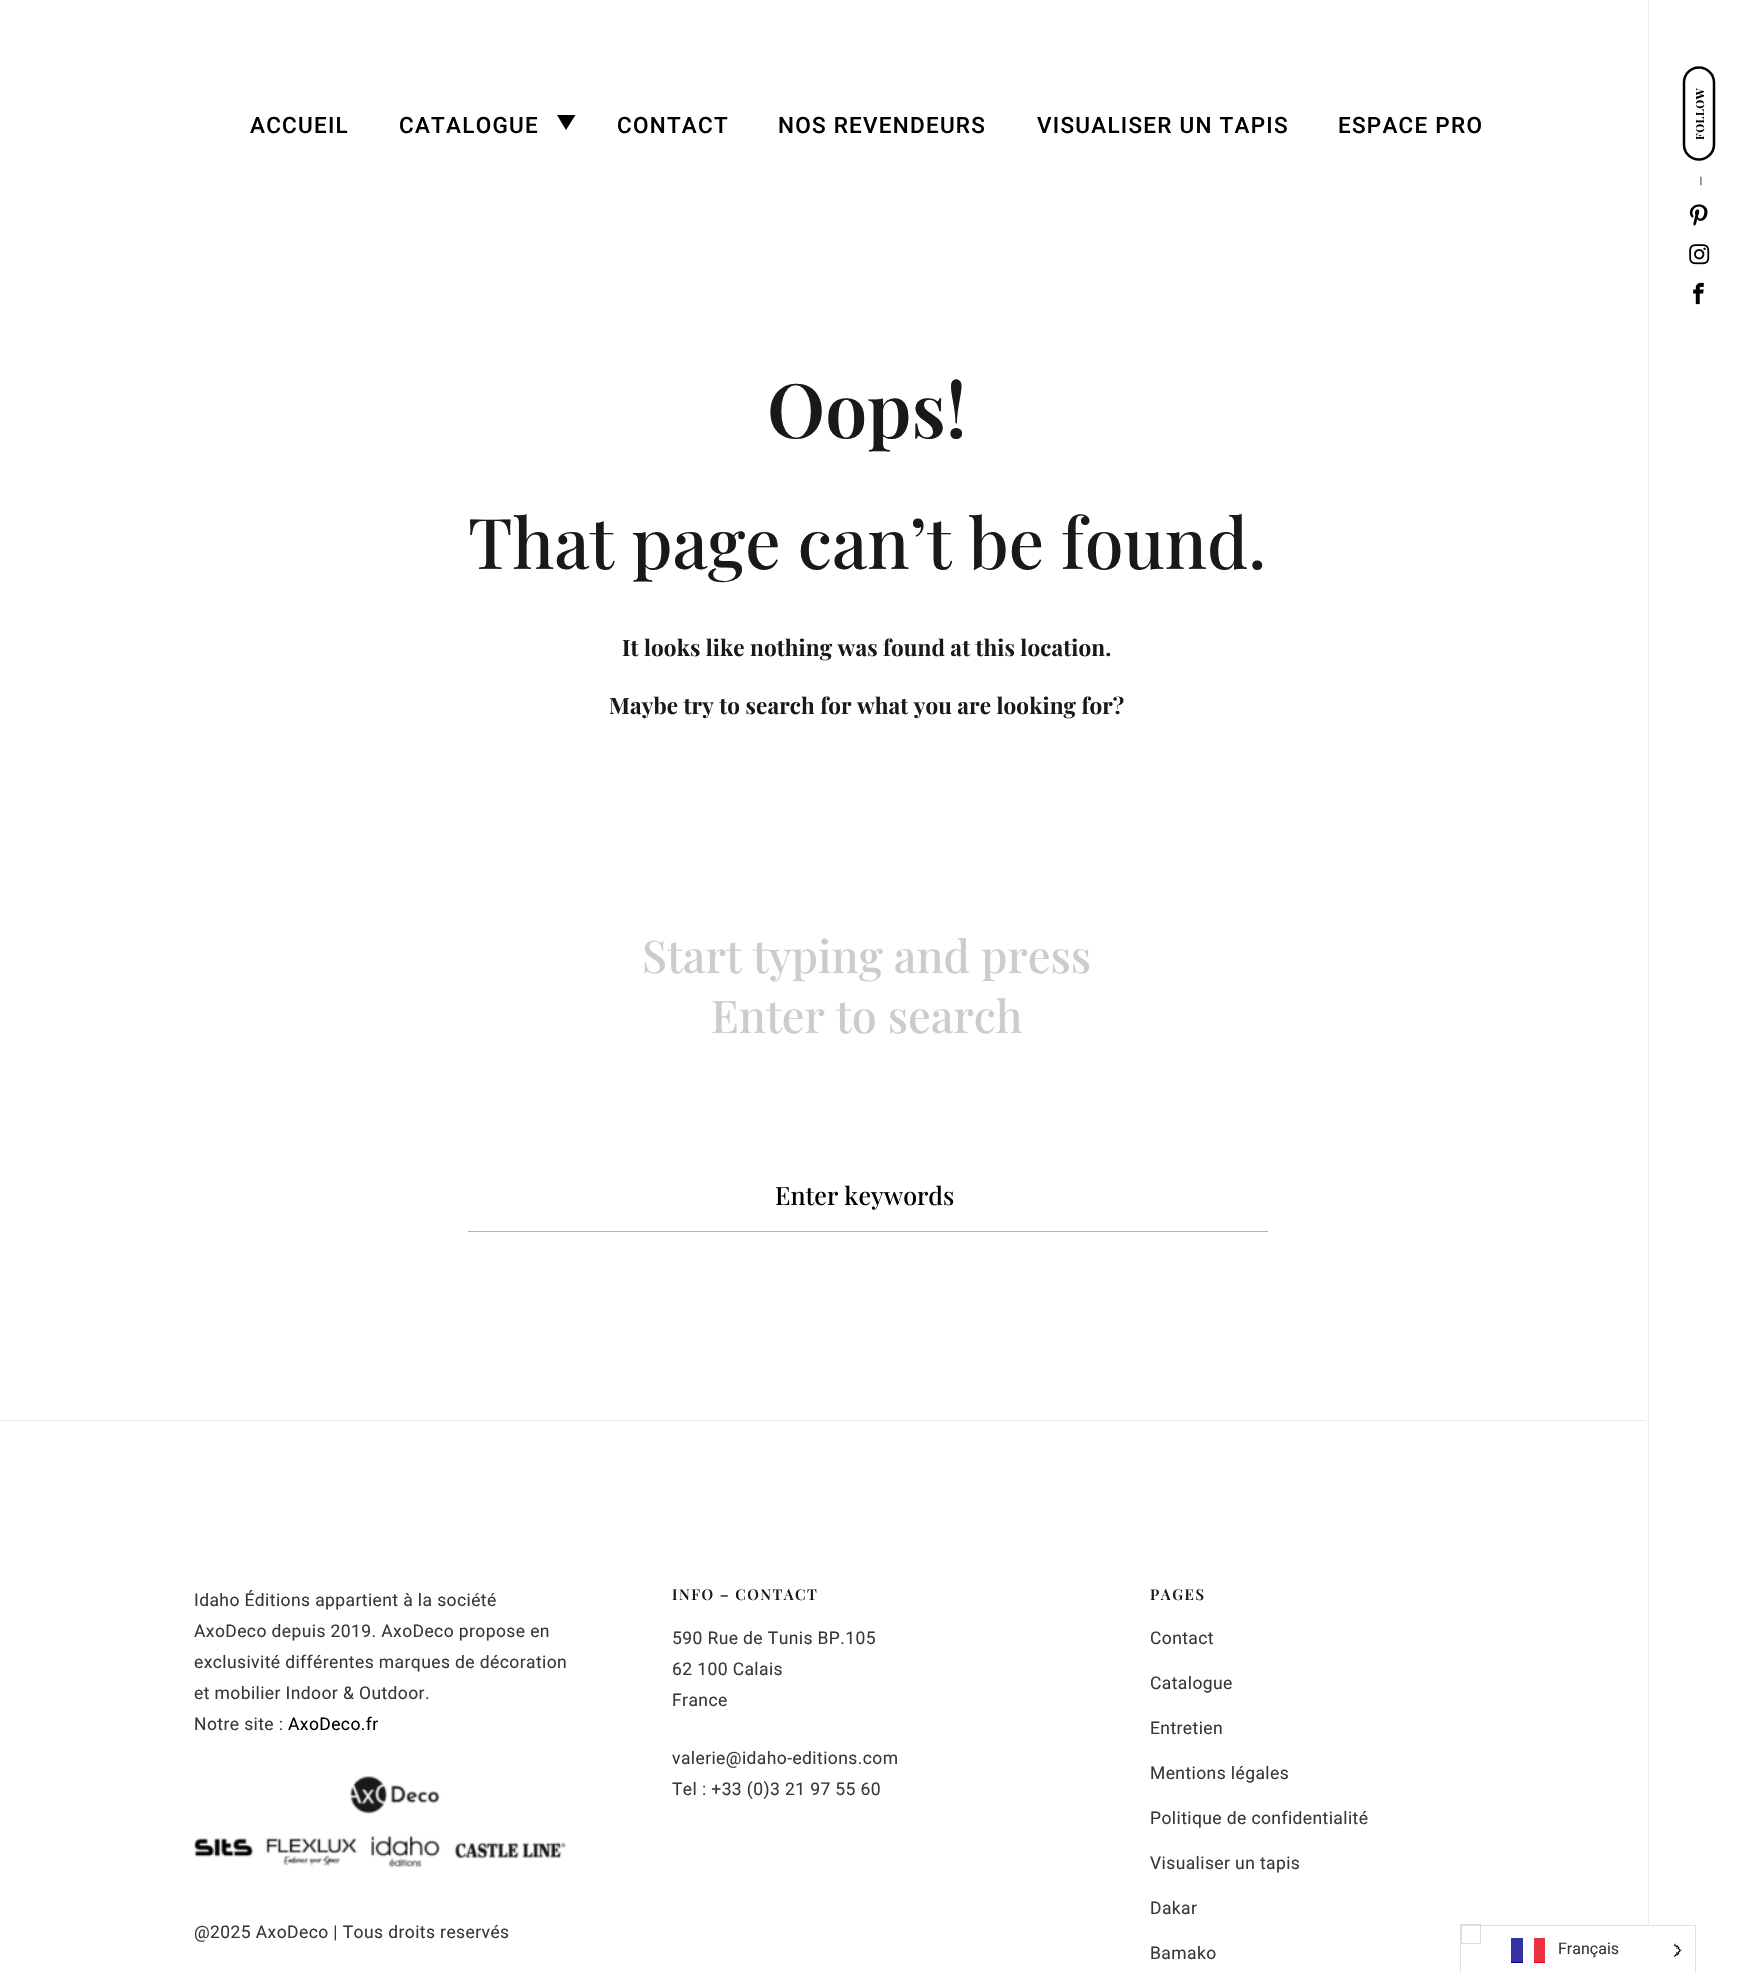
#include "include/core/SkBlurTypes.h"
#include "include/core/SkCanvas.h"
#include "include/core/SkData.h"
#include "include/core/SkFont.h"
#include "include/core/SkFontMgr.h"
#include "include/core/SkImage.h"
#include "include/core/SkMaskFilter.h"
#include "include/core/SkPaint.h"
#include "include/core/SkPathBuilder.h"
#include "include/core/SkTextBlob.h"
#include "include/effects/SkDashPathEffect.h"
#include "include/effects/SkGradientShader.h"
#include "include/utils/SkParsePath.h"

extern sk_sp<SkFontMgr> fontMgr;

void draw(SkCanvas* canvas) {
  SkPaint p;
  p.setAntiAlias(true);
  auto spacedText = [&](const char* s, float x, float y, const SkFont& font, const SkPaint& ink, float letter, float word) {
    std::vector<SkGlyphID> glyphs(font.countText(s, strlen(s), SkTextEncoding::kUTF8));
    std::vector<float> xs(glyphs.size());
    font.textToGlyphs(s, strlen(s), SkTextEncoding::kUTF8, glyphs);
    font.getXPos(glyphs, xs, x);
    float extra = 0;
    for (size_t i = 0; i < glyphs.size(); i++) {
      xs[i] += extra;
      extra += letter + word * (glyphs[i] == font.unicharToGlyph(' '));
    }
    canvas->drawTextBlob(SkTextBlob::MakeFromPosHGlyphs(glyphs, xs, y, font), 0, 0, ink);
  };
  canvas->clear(SK_ColorWHITE);
  p.setColor(SK_ColorBLACK);
  canvas->drawPath(SkPathBuilder().moveTo(575.5f, 115).lineTo(566, 130).lineTo(557, 115).close().detach(), p);
  p.setColor(SkColorSetRGB(179, 179, 179));
  canvas->drawRect(SkRect::MakeLTRB(468, 1231, 1268, 1232), p);
  p.setColor(SkColorSetRGB(235, 235, 235));
  canvas->drawRect(SkRect::MakeLTRB(0, 1420, 1646, 1421), p);
  canvas->drawImageRect(SkImages::DeferredFromEncodedData(SkData::MakeFromFileName("images/1.png")), SkRect::MakeLTRB(193, 1776, 567, 1868), SkSamplingOptions());
  canvas->drawRect(SkRect::MakeLTRB(1648, 0, 1649, 1925), p);
  p.setStyle(SkPaint::kStroke_Style);
  p.setStrokeWidth(2.5f);
  p.setColor(SK_ColorBLACK);
  canvas->drawPath(SkPathBuilder().moveTo(1684, 144.5f).lineTo(1684, 82.5f).cubicTo(1684, 74, 1690.5f, 67.5f, 1699, 67.5f).cubicTo(1707, 67.5f, 1714, 74, 1714, 82.5f).lineTo(1714, 144.5f).cubicTo(1714, 153, 1707, 159.5f, 1699, 159.5f).cubicTo(1690.5f, 159.5f, 1684, 153, 1684, 144.5f).close().detach(), p);
  canvas->drawImageRect(SkImages::DeferredFromEncodedData(SkData::MakeFromFileName("images/2.png")), SkRect::MakeLTRB(1689, 204, 1708, 226), SkSamplingOptions());
  canvas->drawImageRect(SkImages::DeferredFromEncodedData(SkData::MakeFromFileName("images/3.png")), SkRect::MakeLTRB(1689, 244, 1710, 265), SkSamplingOptions());
  canvas->drawImageRect(SkImages::DeferredFromEncodedData(SkData::MakeFromFileName("images/4.png")), SkRect::MakeLTRB(1693, 282, 1704, 305), SkSamplingOptions());
  p.setStrokeWidth(1);
  p.setColor(SkColorSetRGB(224, 224, 224));
  canvas->drawRect(SkRect::MakeLTRB(1460.5f, 1925.5f, 1695.5f, 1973.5f), p);
  p.setColor(SkColorSetARGB(51, 80, 80, 80));
  canvas->drawRect(SkRect::MakeLTRB(1461.5f, 1924.5f, 1480.5f, 1943.5f), p);
  p.setStyle(SkPaint::kFill_Style);
  p.setColor(SkColorSetRGB(0, 0, 145));
  canvas->drawRect(SkRect::MakeLTRB(1511, 1962, 1523, 1963), p);
  p.setColor(SkColorSetRGB(51, 51, 167));
  canvas->drawRect(SkRect::MakeLTRB(1511, 1938, 1523, 1962), p);
  p.setColor(SkColorSetRGB(225, 0, 15));
  canvas->drawRect(SkRect::MakeLTRB(1534, 1962, 1545, 1963), p);
  p.setColor(SkColorSetRGB(231, 51, 63));
  canvas->drawRect(SkRect::MakeLTRB(1534, 1938, 1545, 1962), p);
  canvas->drawImageRect(SkImages::DeferredFromEncodedData(SkData::MakeFromFileName("images/5.png")), SkRect::MakeLTRB(1674, 1943, 1682, 1957), SkSamplingOptions());
  SkFont font1(fontMgr->matchFamilyStyle("Roboto", SkFontStyle(500, SkFontStyle::kNormal_Width, SkFontStyle::kUpright_Slant)), 22.5f);
  font1.setSubpixel(true);
  p.setColor(SK_ColorBLACK);
  spacedText("ACCUEIL", 250, 133, font1, p, 1.25f, 0);
  spacedText("CATALOGUE", 399, 133, font1, p, 1.25f, 0);
  spacedText("CONTACT", 617, 133, font1, p, 1.25f, 0);
  spacedText("NOS REVENDEURS", 778, 133, font1, p, 1.25f, 0);
  spacedText("VISUALISER UN TAPIS", 1037, 133, font1, p, 1.25f, 0);
  spacedText("ESPACE PRO", 1338, 133, font1, p, 1.25f, 0);
  SkFont font2(fontMgr->matchFamilyStyle("Playfair Display", SkFontStyle(600, SkFontStyle::kNormal_Width, SkFontStyle::kUpright_Slant)), 75);
  font2.setSubpixel(true);
  p.setColor(SkColorSetRGB(25, 25, 25));
  canvas->drawString("Oops!", 767, 438, font2, p);
  SkFont font3(fontMgr->matchFamilyStyle("Playfair Display", SkFontStyle(500, SkFontStyle::kNormal_Width, SkFontStyle::kUpright_Slant)), 70);
  font3.setSubpixel(true);
  canvas->drawString("That page can’t be found.", 468, 569, font3, p);
  SkFont font4(fontMgr->matchFamilyStyle("Playfair Display", SkFontStyle::Bold()), 22.5f);
  font4.setSubpixel(true);
  spacedText("It looks like nothing was found at this location.", 622, 656, font4, p, 0.1f, 0);
  spacedText("Maybe try to search for what you are looking for?", 609, 714, font4, p, 0.1f, 0);
  SkFont font5(fontMgr->matchFamilyStyle("Playfair Display", SkFontStyle(500, SkFontStyle::kNormal_Width, SkFontStyle::kUpright_Slant)), 45);
  font5.setSubpixel(true);
  p.setColor(SkColorSetRGB(204, 204, 204));
  canvas->drawString("Start typing and press", 642, 973, font5, p);
  canvas->drawString("Enter to search", 711, 1033, font5, p);
  SkFont font6(fontMgr->matchFamilyStyle("Playfair Display", SkFontStyle(500, SkFontStyle::kNormal_Width, SkFontStyle::kUpright_Slant)), 25);
  font6.setSubpixel(true);
  p.setColor(SK_ColorBLACK);
  canvas->drawString("Enter keywords", 775, 1205, font6, p);
  SkFont font7(fontMgr->matchFamilyStyle("Roboto", SkFontStyle::Normal()), 17.5f);
  font7.setSubpixel(true);
  p.setColor(SkColorSetRGB(56, 56, 56));
  spacedText("Idaho Éditions appartient à la société", 194, 1606, font7, p, 0.4f, 0);
  spacedText("AxoDeco depuis 2019. AxoDeco propose en", 194, 1637, font7, p, 0.4f, 0);
  spacedText("exclusivité différentes marques de décoration", 194, 1668, font7, p, 0.4f, 0);
  spacedText("et mobilier Indoor & Outdoor.", 194, 1699, font7, p, 0.4f, 0);
  spacedText("Notre site :", 194, 1730, font7, p, 0.4f, 0);
  p.setColor(SK_ColorBLACK);
  spacedText("AxoDeco.fr", 288, 1730, font7, p, 0.4f, 0);
  p.setColor(SkColorSetRGB(56, 56, 56));
  spacedText("@2025 AxoDeco | Tous droits reservés", 194, 1938, font7, p, 0.4f, 0);
  SkFont font8(fontMgr->matchFamilyStyle("Playfair Display", SkFontStyle(600, SkFontStyle::kNormal_Width, SkFontStyle::kUpright_Slant)), 15);
  font8.setSubpixel(true);
  p.setColor(SkColorSetRGB(25, 25, 25));
  spacedText("INFO – CONTACT", 672, 1600, font8, p, 1.5f, 0);
  p.setColor(SkColorSetRGB(56, 56, 56));
  spacedText("590 Rue de Tunis BP.105", 672, 1644, font7, p, 0.4f, 0);
  spacedText("62 100 Calais", 672, 1675, font7, p, 0.4f, 0);
  spacedText("France", 672, 1706, font7, p, 0.4f, 0);
  spacedText("valerie@idaho-editions.com", 672, 1764, font7, p, 0.4f, 0);
  spacedText("Tel : +33 (0)3 21 97 55 60", 672, 1795, font7, p, 0.4f, 0);
  p.setColor(SkColorSetRGB(25, 25, 25));
  spacedText("PAGES", 1150, 1600, font8, p, 1.5f, 0);
  p.setColor(SkColorSetRGB(56, 56, 56));
  spacedText("Contact", 1150, 1644, font7, p, 0.4f, 0);
  spacedText("Catalogue", 1150, 1689, font7, p, 0.4f, 0);
  spacedText("Entretien", 1150, 1734, font7, p, 0.4f, 0);
  spacedText("Mentions légales", 1150, 1779, font7, p, 0.4f, 0);
  spacedText("Politique de confidentialité", 1150, 1824, font7, p, 0.4f, 0);
  spacedText("Visualiser un tapis", 1150, 1869, font7, p, 0.4f, 0);
  spacedText("Dakar", 1150, 1914, font7, p, 0.4f, 0);
  spacedText("Bamako", 1150, 1959, font7, p, 0.4f, 0);
  SkFont font9(fontMgr->matchFamilyStyle("Playfair Display", SkFontStyle::Bold()), 11.25f);
  font9.setSubpixel(true);
  p.setColor(SK_ColorBLACK);
  canvas->save();
  canvas->rotate(-90, 1704, 140);
  spacedText("FOLLOW", 1704, 140, font9, p, 0.5f, 0);
  canvas->restore();
  SkFont font10(fontMgr->matchFamilyStyle("Playfair Display", SkFontStyle(500, SkFontStyle::kNormal_Width, SkFontStyle::kUpright_Slant)), 11.25f);
  font10.setSubpixel(true);
  canvas->save();
  canvas->rotate(-90, 1704, 186);
  spacedText("—", 1704, 186, font10, p, 0.5f, 0);
  canvas->restore();
  SkFont font11(fontMgr->matchFamilyStyle("Roboto", SkFontStyle::Normal()), 16);
  font11.setSubpixel(true);
  p.setColor(SkColorSetRGB(56, 56, 56));
  canvas->drawString("Français", 1558, 1954, font11, p);
}
